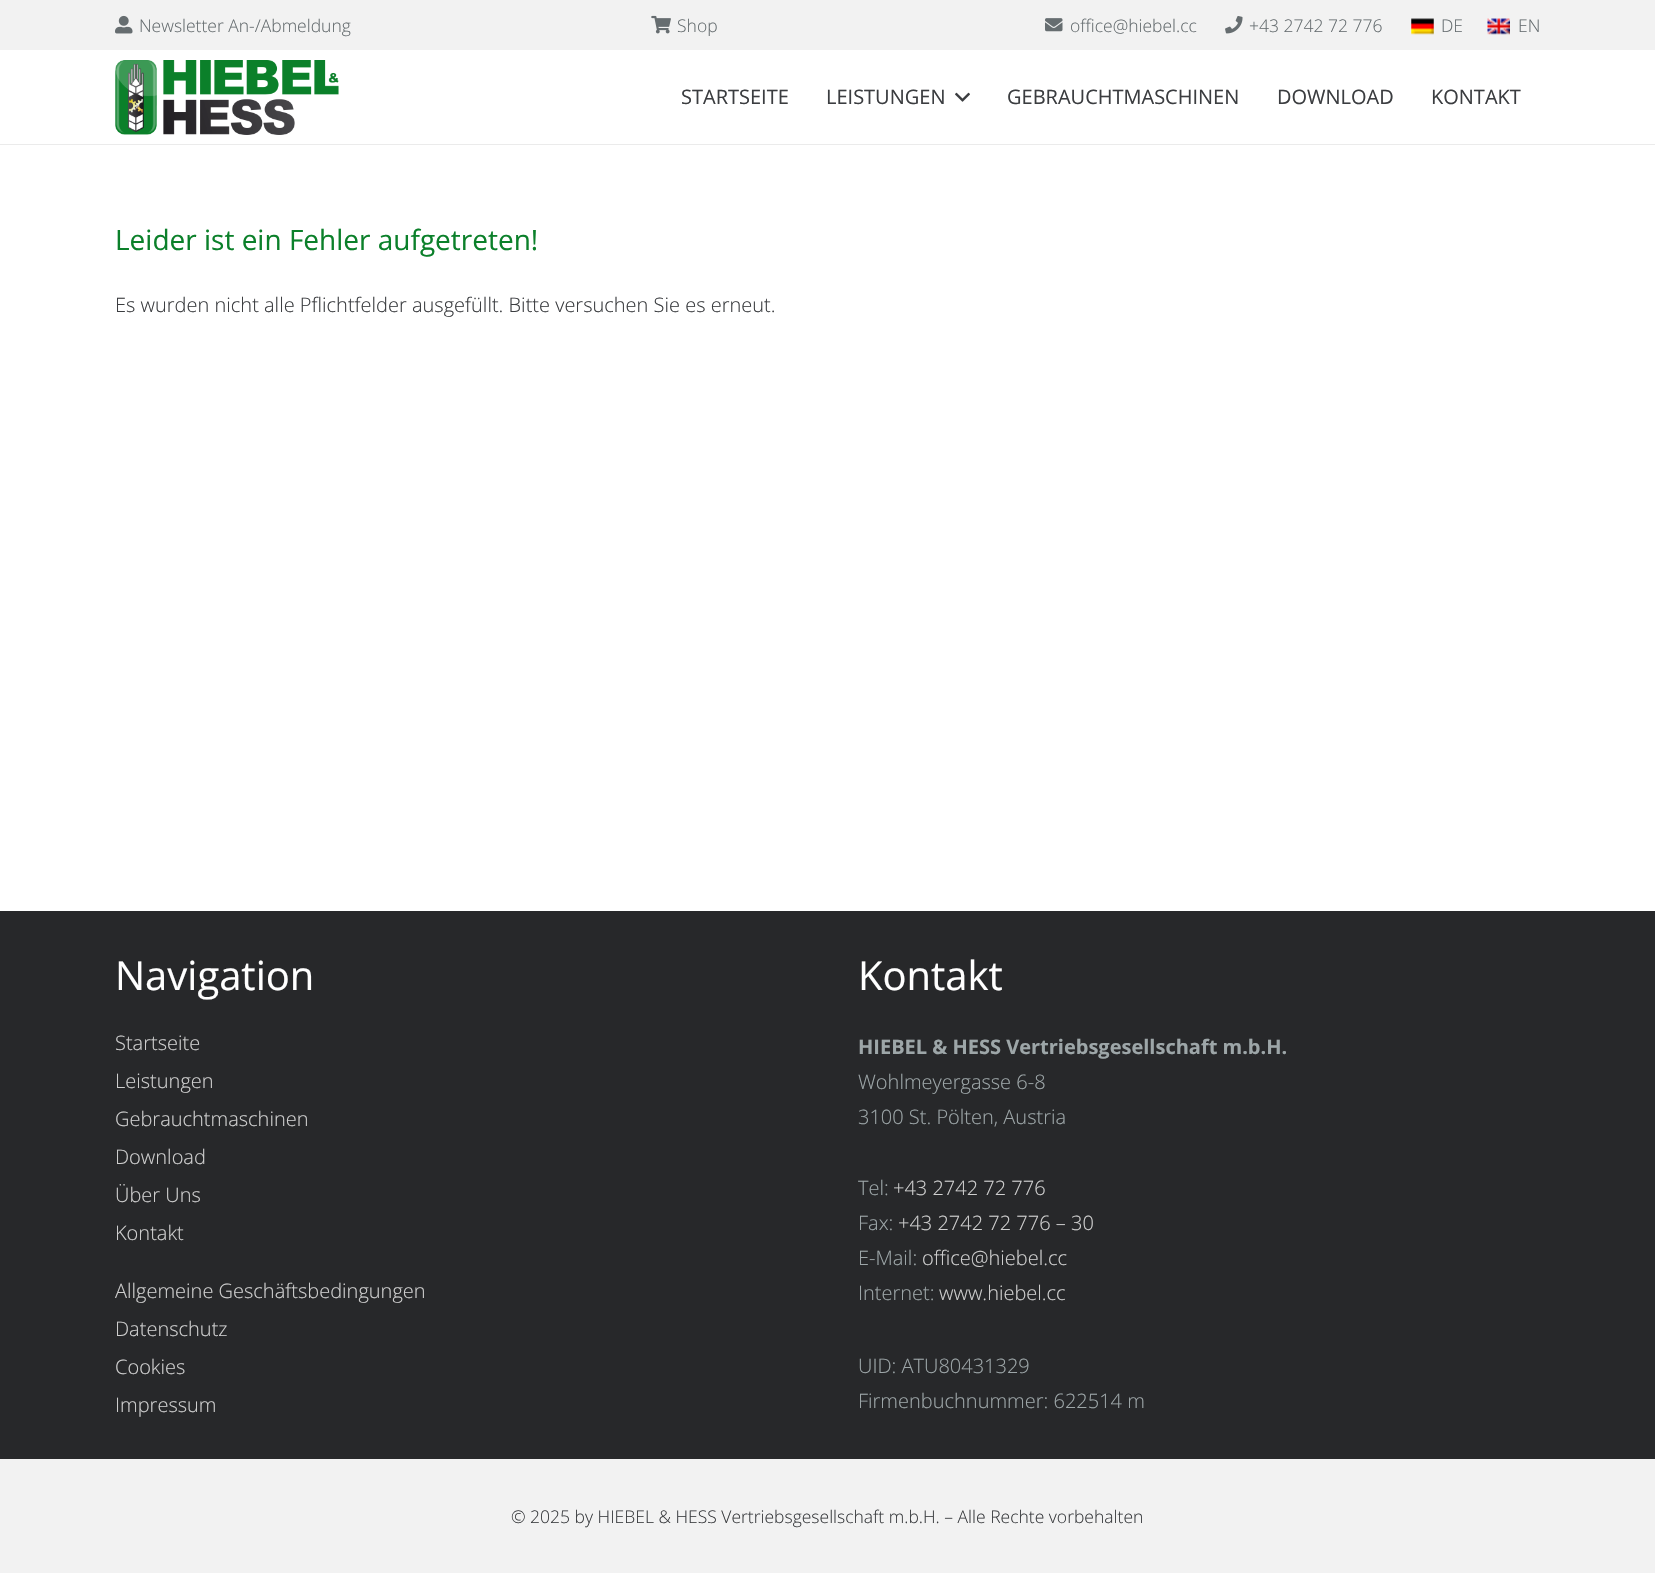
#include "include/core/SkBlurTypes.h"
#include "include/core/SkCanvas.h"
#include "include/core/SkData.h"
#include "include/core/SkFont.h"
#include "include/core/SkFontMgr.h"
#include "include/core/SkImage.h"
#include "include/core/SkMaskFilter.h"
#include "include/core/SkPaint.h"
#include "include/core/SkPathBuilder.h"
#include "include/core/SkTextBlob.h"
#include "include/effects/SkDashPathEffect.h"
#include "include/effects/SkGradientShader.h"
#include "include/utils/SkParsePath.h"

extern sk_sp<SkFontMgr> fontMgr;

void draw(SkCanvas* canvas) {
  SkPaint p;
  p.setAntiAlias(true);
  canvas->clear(SK_ColorWHITE);
  p.setColor(SkColorSetRGB(242, 242, 242));
  canvas->drawRect(SkRect::MakeLTRB(0, 0, 1655, 50), p);
  canvas->drawImageRect(SkImages::DeferredFromEncodedData(SkData::MakeFromFileName("images/1.png")), SkRect::MakeLTRB(115, 15, 133, 34), SkSamplingOptions());
  canvas->drawImageRect(SkImages::DeferredFromEncodedData(SkData::MakeFromFileName("images/2.png")), SkRect::MakeLTRB(651, 15, 671, 34), SkSamplingOptions());
  canvas->drawImageRect(SkImages::DeferredFromEncodedData(SkData::MakeFromFileName("images/3.png")), SkRect::MakeLTRB(1045, 18, 1063, 32), SkSamplingOptions());
  canvas->drawImageRect(SkImages::DeferredFromEncodedData(SkData::MakeFromFileName("images/4.png")), SkRect::MakeLTRB(1225, 16, 1243, 34), SkSamplingOptions());
  canvas->drawImageRect(SkImages::DeferredFromEncodedData(SkData::MakeFromFileName("images/5.png")), SkRect::MakeLTRB(1411, 18, 1434, 35), SkSamplingOptions());
  canvas->drawImageRect(SkImages::DeferredFromEncodedData(SkData::MakeFromFileName("images/6.png")), SkRect::MakeLTRB(1487, 18, 1510, 35), SkSamplingOptions());
  p.setColor(SkColorSetRGB(235, 235, 235));
  canvas->drawRect(SkRect::MakeLTRB(0, 144, 1655, 145), p);
  canvas->drawImageRect(SkImages::DeferredFromEncodedData(SkData::MakeFromFileName("images/7.png")), SkRect::MakeLTRB(115, 60, 339, 135), SkSamplingOptions());
  canvas->drawImageRect(SkImages::DeferredFromEncodedData(SkData::MakeFromFileName("images/8.png")), SkRect::MakeLTRB(955, 92, 970, 102), SkSamplingOptions());
  p.setColor(SkColorSetRGB(39, 40, 42));
  canvas->drawRect(SkRect::MakeLTRB(0, 911, 1655, 1459), p);
  p.setColor(SkColorSetRGB(242, 242, 242));
  canvas->drawRect(SkRect::MakeLTRB(0, 1459, 1655, 1573), p);
  SkFont font1(fontMgr->matchFamilyStyle("Open Sans", SkFontStyle(300, SkFontStyle::kNormal_Width, SkFontStyle::kUpright_Slant)), 17.5f);
  font1.setSubpixel(true);
  p.setColor(SkColorSetRGB(102, 109, 112));
  canvas->drawString("Newsletter An-/Abmeldung", 139, 32, font1, p);
  canvas->drawString("Shop", 677, 32, font1, p);
  canvas->drawString("office@hiebel.cc", 1070, 32, font1, p);
  canvas->drawString("+43 2742 72 776", 1249, 32, font1, p);
  canvas->drawString("DE", 1441, 32, font1, p);
  canvas->drawString("EN", 1518, 32, font1, p);
  SkFont font2(fontMgr->matchFamilyStyle("Open Sans", SkFontStyle::Normal()), 20);
  font2.setSubpixel(true);
  p.setColor(SkColorSetRGB(59, 61, 64));
  canvas->drawString("STARTSEITE", 681, 104, font2, p);
  canvas->drawString("LEISTUNGEN", 826, 104, font2, p);
  canvas->drawString("GEBRAUCHTMASCHINEN", 1007, 104, font2, p);
  canvas->drawString("DOWNLOAD", 1277, 104, font2, p);
  canvas->drawString("KONTAKT", 1431, 104, font2, p);
  SkFont font3(fontMgr->matchFamilyStyle("Open Sans", SkFontStyle::Normal()), 28);
  font3.setSubpixel(true);
  p.setColor(SkColorSetRGB(11, 128, 42));
  canvas->drawString("Leider ist ein Fehler aufgetreten!", 115, 250, font3, p);
  SkFont font4(fontMgr->matchFamilyStyle("Open Sans", SkFontStyle(300, SkFontStyle::kNormal_Width, SkFontStyle::kUpright_Slant)), 20);
  font4.setSubpixel(true);
  p.setColor(SkColorSetRGB(59, 61, 64));
  canvas->drawString("Es wurden nicht alle Pflichtfelder ausgefüllt. Bitte versuchen Sie es erneut.", 115, 312, font4, p);
  SkFont font5(fontMgr->matchFamilyStyle("Open Sans", SkFontStyle::Normal()), 40);
  font5.setSubpixel(true);
  p.setColor(SK_ColorWHITE);
  canvas->drawString("Navigation", 115, 990, font5, p);
  p.setColor(SkColorSetRGB(207, 207, 207));
  canvas->drawString("Startseite", 115, 1050, font4, p);
  canvas->drawString("Leistungen", 115, 1088, font4, p);
  canvas->drawString("Gebrauchtmaschinen", 115, 1126, font4, p);
  canvas->drawString("Download", 115, 1164, font4, p);
  canvas->drawString("Über Uns", 115, 1202, font4, p);
  canvas->drawString("Kontakt", 115, 1240, font4, p);
  canvas->drawString("Allgemeine Geschäftsbedingungen", 115, 1298, font4, p);
  canvas->drawString("Datenschutz", 115, 1336, font4, p);
  canvas->drawString("Cookies", 115, 1374, font4, p);
  canvas->drawString("Impressum", 115, 1412, font4, p);
  p.setColor(SK_ColorWHITE);
  canvas->drawString("Kontakt", 858, 990, font5, p);
  SkFont font6(fontMgr->matchFamilyStyle("Open Sans", SkFontStyle::Bold()), 20);
  font6.setSubpixel(true);
  p.setColor(SkColorSetRGB(157, 166, 168));
  canvas->drawString("HIEBEL & HESS Vertriebsgesellschaft m.b.H.", 858, 1054, font6, p);
  canvas->drawString("Wohlmeyergasse 6-8", 858, 1089, font4, p);
  canvas->drawString("3100 St. Pölten, Austria", 858, 1124, font4, p);
  canvas->drawString("Tel:", 858, 1195, font4, p);
  p.setColor(SkColorSetRGB(207, 207, 207));
  canvas->drawString("+43 2742 72 776", 893, 1195, font4, p);
  p.setColor(SkColorSetRGB(157, 166, 168));
  canvas->drawString("Fax:", 858, 1230, font4, p);
  p.setColor(SkColorSetRGB(207, 207, 207));
  canvas->drawString("+43 2742 72 776 – 30", 898, 1230, font4, p);
  p.setColor(SkColorSetRGB(157, 166, 168));
  canvas->drawString("E-Mail:", 858, 1265, font4, p);
  p.setColor(SkColorSetRGB(207, 207, 207));
  canvas->drawString("office@hiebel.cc", 922, 1265, font4, p);
  p.setColor(SkColorSetRGB(157, 166, 168));
  canvas->drawString("Internet:", 858, 1300, font4, p);
  p.setColor(SkColorSetRGB(207, 207, 207));
  canvas->drawString("www.hiebel.cc", 939, 1300, font4, p);
  p.setColor(SkColorSetRGB(157, 166, 168));
  canvas->drawString("UID: ATU80431329", 858, 1373, font4, p);
  canvas->drawString("Firmenbuchnummer: 622514 m", 858, 1408, font4, p);
  p.setColor(SkColorSetRGB(59, 61, 64));
  canvas->drawString("© 2025 by HIEBEL & HESS Vertriebsgesellschaft m.b.H. – Alle Rechte vorbehalten", 511, 1523, font1, p);
}
